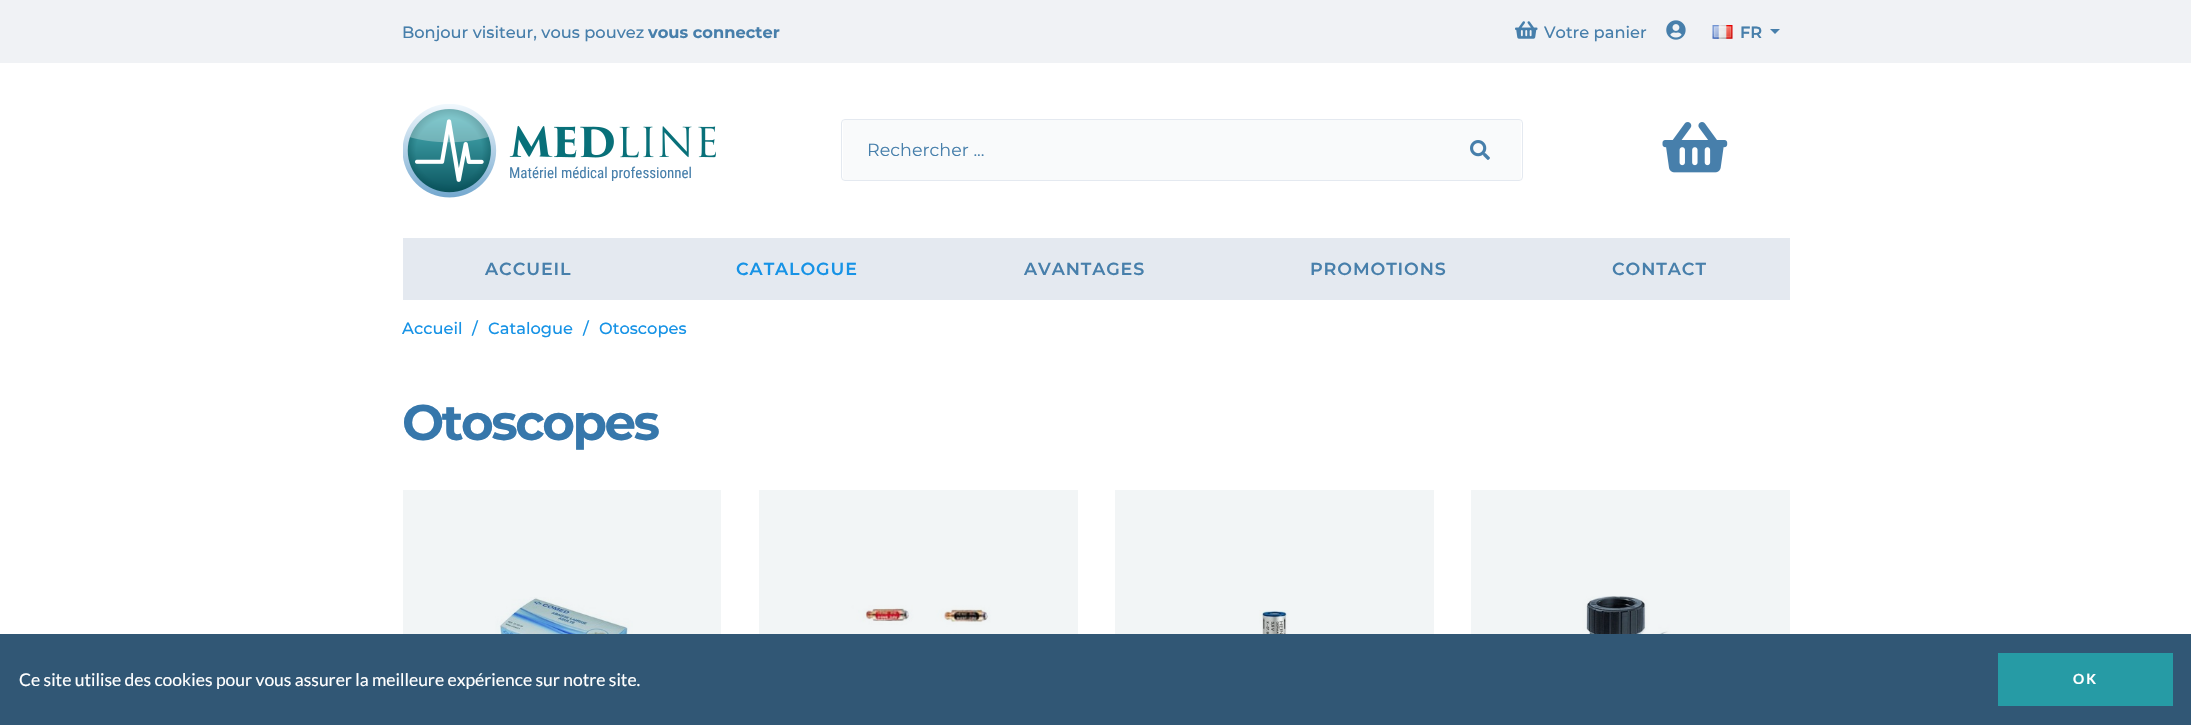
#include "include/core/SkBlurTypes.h"
#include "include/core/SkCanvas.h"
#include "include/core/SkData.h"
#include "include/core/SkFont.h"
#include "include/core/SkFontMgr.h"
#include "include/core/SkImage.h"
#include "include/core/SkMaskFilter.h"
#include "include/core/SkPaint.h"
#include "include/core/SkPathBuilder.h"
#include "include/core/SkTextBlob.h"
#include "include/effects/SkDashPathEffect.h"
#include "include/effects/SkGradientShader.h"
#include "include/utils/SkParsePath.h"

extern sk_sp<SkFontMgr> fontMgr;

void draw(SkCanvas* canvas) {
  SkPaint p;
  p.setAntiAlias(true);
  auto spacedText = [&](const char* s, float x, float y, const SkFont& font, const SkPaint& ink, float letter, float word) {
    std::vector<SkGlyphID> glyphs(font.countText(s, strlen(s), SkTextEncoding::kUTF8));
    std::vector<float> xs(glyphs.size());
    font.textToGlyphs(s, strlen(s), SkTextEncoding::kUTF8, glyphs);
    font.getXPos(glyphs, xs, x);
    float extra = 0;
    for (size_t i = 0; i < glyphs.size(); i++) {
      xs[i] += extra;
      extra += letter + word * (glyphs[i] == font.unicharToGlyph(' '));
    }
    canvas->drawTextBlob(SkTextBlob::MakeFromPosHGlyphs(glyphs, xs, y, font), 0, 0, ink);
  };
  canvas->clear(SK_ColorWHITE);
  p.setColor(SkColorSetRGB(242, 245, 246));
  canvas->drawRect(SkRect::MakeLTRB(1471, 490, 1790, 634), p);
  canvas->drawRect(SkRect::MakeLTRB(1115, 490, 1434, 634), p);
  canvas->drawRect(SkRect::MakeLTRB(759, 490, 1078, 634), p);
  canvas->drawRect(SkRect::MakeLTRB(403, 490, 721, 634), p);
  p.setColor(SkColorSetRGB(240, 242, 245));
  canvas->drawRect(SkRect::MakeLTRB(0, 0, 2191, 63), p);
  p.setColor(SkColorSetRGB(228, 233, 240));
  canvas->drawRect(SkRect::MakeLTRB(403, 238, 1790, 300), p);
  canvas->drawImageRect(SkImages::DeferredFromEncodedData(SkData::MakeFromFileName("images/1.png")), SkRect::MakeLTRB(1515, 21, 1538, 39), SkSamplingOptions());
  canvas->drawImageRect(SkImages::DeferredFromEncodedData(SkData::MakeFromFileName("images/2.png")), SkRect::MakeLTRB(1666, 20, 1686, 40), SkSamplingOptions());
  canvas->drawImageRect(SkImages::DeferredFromEncodedData(SkData::MakeFromFileName("images/3.png")), SkRect::MakeLTRB(1712, 25, 1733, 39), SkSamplingOptions());
  p.setColor(SkColorSetRGB(71, 127, 171));
  canvas->drawPath(SkPathBuilder().moveTo(1770, 29).lineTo(1780, 29).lineTo(1775, 34).close().detach(), p);
  p.setColor(SkColorSetRGB(249, 250, 251));
  canvas->drawRoundRect(SkRect::MakeLTRB(843, 120, 1521, 180), 2.5f, 2.5f, p);
  p.setStyle(SkPaint::kStroke_Style);
  p.setStrokeWidth(1);
  p.setColor(SkColorSetRGB(228, 233, 240));
  canvas->drawRoundRect(SkRect::MakeLTRB(841.5f, 119.5f, 1522.5f, 180.5f), 3.5f, 3.5f, p);
  canvas->drawImageRect(SkImages::DeferredFromEncodedData(SkData::MakeFromFileName("images/4.png")), SkRect::MakeLTRB(1470, 140, 1490, 160), SkSamplingOptions());
  canvas->drawImageRect(SkImages::DeferredFromEncodedData(SkData::MakeFromFileName("images/5.png")), SkRect::MakeLTRB(1662, 122, 1728, 173), SkSamplingOptions());
  canvas->drawImageRect(SkImages::DeferredFromEncodedData(SkData::MakeFromFileName("images/6.png")), SkRect::MakeLTRB(403, 104, 716, 198), SkSamplingOptions());
  canvas->drawImageRect(SkImages::DeferredFromEncodedData(SkData::MakeFromFileName("images/7.png")), SkRect::MakeLTRB(495, 597, 633, 634), SkSamplingOptions());
  canvas->drawImageRect(SkImages::DeferredFromEncodedData(SkData::MakeFromFileName("images/8.png")), SkRect::MakeLTRB(840, 605, 996, 634), SkSamplingOptions());
  canvas->drawImageRect(SkImages::DeferredFromEncodedData(SkData::MakeFromFileName("images/9.png")), SkRect::MakeLTRB(1259, 610, 1290, 634), SkSamplingOptions());
  canvas->drawImageRect(SkImages::DeferredFromEncodedData(SkData::MakeFromFileName("images/10.png")), SkRect::MakeLTRB(1582, 596, 1676, 634), SkSamplingOptions());
  p.setStyle(SkPaint::kFill_Style);
  p.setColor(SkColorSetRGB(49, 87, 117));
  canvas->drawRect(SkRect::MakeLTRB(0, 634, 2191, 725), p);
  p.setColor(SkColorSetRGB(38, 155, 165));
  canvas->drawRect(SkRect::MakeLTRB(1998, 653, 2173, 706), p);
  SkFont font1(fontMgr->matchFamilyStyle("Montserrat", SkFontStyle(500, SkFontStyle::kNormal_Width, SkFontStyle::kUpright_Slant)), 16.25f);
  font1.setSubpixel(true);
  p.setColor(SkColorSetRGB(71, 127, 171));
  canvas->drawString("Bonjour visiteur, vous pouvez", 402, 38, font1, p);
  SkFont font2(fontMgr->matchFamilyStyle("Montserrat", SkFontStyle::Bold()), 16.25f);
  font2.setSubpixel(true);
  canvas->drawString("vous connecter", 648, 38, font2, p);
  canvas->drawString("Votre panier", 1544, 38, font1, p);
  SkFont font3(fontMgr->matchFamilyStyle("Montserrat", SkFontStyle(600, SkFontStyle::kNormal_Width, SkFontStyle::kUpright_Slant)), 16.25f);
  font3.setSubpixel(true);
  canvas->drawString("FR", 1740, 38, font3, p);
  SkFont font4(fontMgr->matchFamilyStyle("Montserrat", SkFontStyle(600, SkFontStyle::kNormal_Width, SkFontStyle::kUpright_Slant)), 17.5f);
  font4.setSubpixel(true);
  spacedText("ACCUEIL", 485, 275, font4, p, 0.9f, 0);
  p.setColor(SkColorSetRGB(23, 147, 230));
  spacedText("CATALOGUE", 736, 275, font4, p, 0.9f, 0);
  p.setColor(SkColorSetRGB(71, 127, 171));
  spacedText("AVANTAGES", 1024, 275, font4, p, 0.9f, 0);
  spacedText("PROMOTIONS", 1310, 275, font4, p, 0.9f, 0);
  spacedText("CONTACT", 1612, 275, font4, p, 0.9f, 0);
  SkFont font5(fontMgr->matchFamilyStyle("Montserrat", SkFontStyle::Normal()), 17.5f);
  font5.setSubpixel(true);
  canvas->drawString("Rechercher ...", 867, 156, font5, p);
  SkFont font6(fontMgr->matchFamilyStyle("Roboto Condensed", SkFontStyle::Normal()), 15);
  font6.setSubpixel(true);
  canvas->drawString("Matériel médical professionnel", 509, 178, font6, p);
  p.setColor(SkColorSetRGB(23, 147, 230));
  canvas->drawString("Accueil", 402, 334, font1, p);
  canvas->drawString("/", 472, 334, font1, p);
  canvas->drawString("Catalogue", 488, 334, font1, p);
  canvas->drawString("/", 583, 334, font1, p);
  canvas->drawString("Otoscopes", 599, 334, font1, p);
  SkFont font7(fontMgr->matchFamilyStyle("Montserrat", SkFontStyle::Bold()), 50);
  font7.setSubpixel(true);
  p.setColor(SkColorSetRGB(54, 119, 171));
  spacedText("Otoscopes", 402, 440, font7, p, -2.5f, 0);
  SkFont font8(fontMgr->matchFamilyStyle("Lato", SkFontStyle::Normal()), 17.5f);
  font8.setSubpixel(true);
  p.setColor(SK_ColorWHITE);
  canvas->drawString("Ce site utilise des cookies pour vous assurer la meilleure expérience sur notre site.", 19, 686, font8, p);
  SkFont font9(fontMgr->matchFamilyStyle("Lato", SkFontStyle::Bold()), 14);
  font9.setSubpixel(true);
  spacedText("OK", 2073, 684, font9, p, 2, 0);
}
